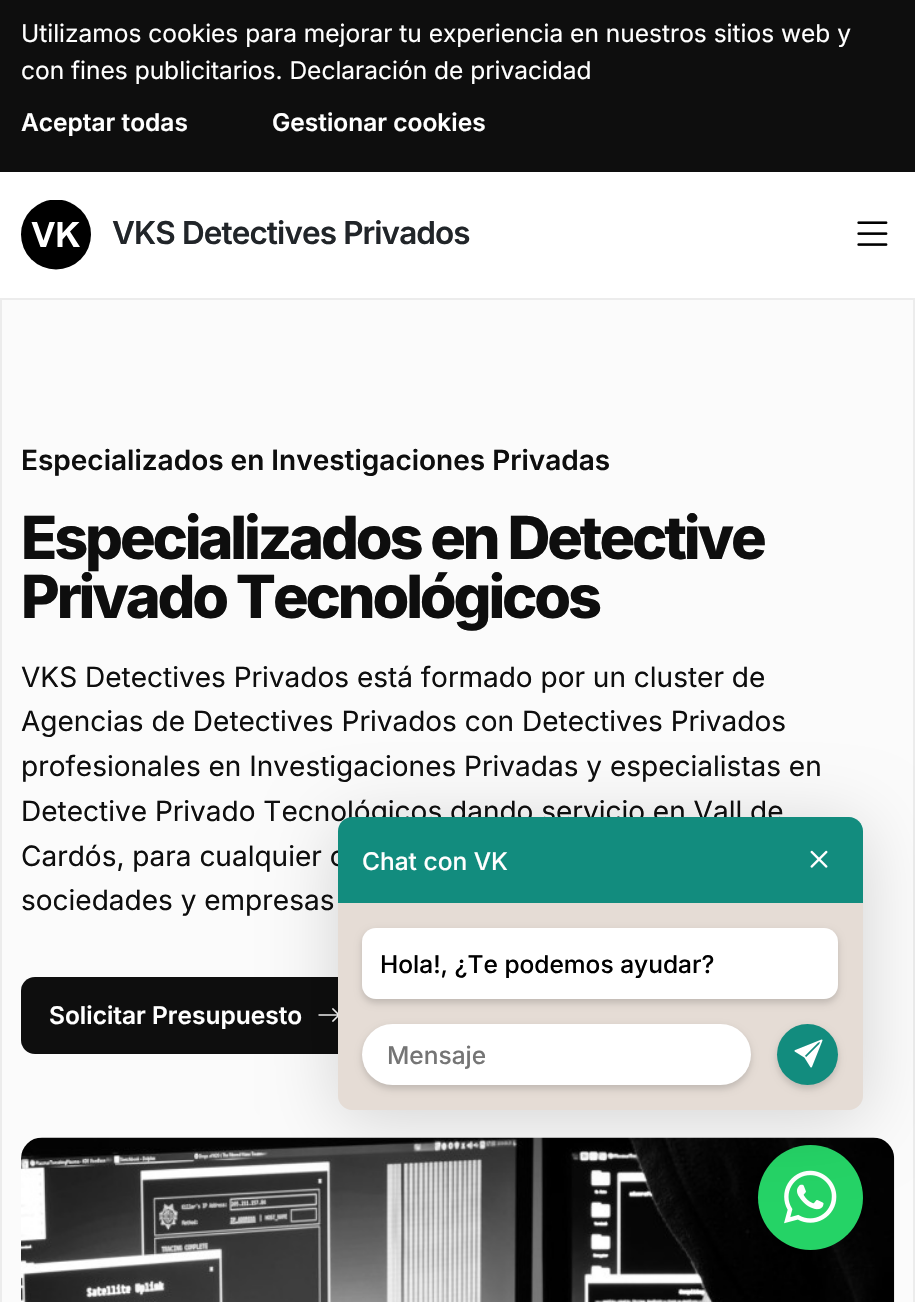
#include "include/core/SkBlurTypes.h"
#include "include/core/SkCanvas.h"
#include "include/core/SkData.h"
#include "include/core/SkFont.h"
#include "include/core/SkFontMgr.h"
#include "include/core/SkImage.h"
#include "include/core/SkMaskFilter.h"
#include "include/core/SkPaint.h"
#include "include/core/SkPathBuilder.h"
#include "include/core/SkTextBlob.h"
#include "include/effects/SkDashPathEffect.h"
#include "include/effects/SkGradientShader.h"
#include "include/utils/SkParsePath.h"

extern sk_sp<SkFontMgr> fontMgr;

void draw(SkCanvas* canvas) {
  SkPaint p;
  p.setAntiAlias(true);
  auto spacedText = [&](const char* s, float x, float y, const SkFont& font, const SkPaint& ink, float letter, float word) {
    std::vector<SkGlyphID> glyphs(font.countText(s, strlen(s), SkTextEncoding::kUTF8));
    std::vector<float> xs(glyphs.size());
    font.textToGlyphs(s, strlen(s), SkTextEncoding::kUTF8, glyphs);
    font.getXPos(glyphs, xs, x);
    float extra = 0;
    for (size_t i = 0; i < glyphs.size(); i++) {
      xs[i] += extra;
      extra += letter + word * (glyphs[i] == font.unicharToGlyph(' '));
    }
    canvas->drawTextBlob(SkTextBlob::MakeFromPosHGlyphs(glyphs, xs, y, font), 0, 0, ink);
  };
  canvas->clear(SK_ColorWHITE);
  p.setColor(SkColorSetRGB(14, 14, 14));
  canvas->drawRect(SkRect::MakeLTRB(0, 0, 915, 172), p);
  canvas->save();
  canvas->clipRect(SkRect::MakeLTRB(21, 200, 91, 270));
  p.setColor(SK_ColorBLACK);
  canvas->drawCircle(56, 234.5f, 35, p);
  canvas->restore();
  p.setColor(SK_ColorWHITE);
  canvas->drawPath(SkPathBuilder().moveTo(40.5f, 247).lineTo(31.5f, 222).lineTo(37, 222).lineTo(43.5f, 240.5f).lineTo(49.5f, 222).lineTo(55, 222).lineTo(46, 247).close().moveTo(57.5f, 247).lineTo(57.5f, 222).lineTo(62.5f, 222).lineTo(62.5f, 233).lineTo(72.5f, 222).lineTo(79.5f, 222).lineTo(70, 231.5f).lineTo(80, 247).lineTo(73.5f, 247).lineTo(66.5f, 235).lineTo(62.5f, 239.5f).lineTo(62.5f, 247).close().detach(), p);
  canvas->drawImageRect(SkImages::DeferredFromEncodedData(SkData::MakeFromFileName("images/1.png")), SkRect::MakeLTRB(857, 221, 888, 246), SkSamplingOptions());
  p.setColor(SkColorSetRGB(251, 251, 251));
  canvas->drawRect(SkRect::MakeLTRB(1, 299, 914, 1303), p);
  p.setStyle(SkPaint::kStroke_Style);
  p.setStrokeWidth(2);
  p.setColor(SkColorSetRGB(236, 236, 236));
  canvas->drawRect(SkRect::MakeLTRB(1, 299, 914, 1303), p);
  p.setStyle(SkPaint::kFill_Style);
  p.setColor(SkColorSetRGB(14, 14, 14));
  canvas->drawRoundRect(SkRect::MakeLTRB(21, 977, 369, 1054), 14, 14, p);
  canvas->drawImageRect(SkImages::DeferredFromEncodedData(SkData::MakeFromFileName("images/2.png")), SkRect::MakeLTRB(318, 1008, 338, 1022), SkSamplingOptions());
  canvas->drawImageRect(SkImages::DeferredFromEncodedData(SkData::MakeFromFileName("images/3.png")), SkRect::MakeLTRB(21, 1137, 895, 1302), SkSamplingOptions());
  p.setColor(SkColorSetRGB(37, 211, 102));
  canvas->drawCircle(810.5f, 1197.5f, 52.5f, p);
  canvas->drawImageRect(SkImages::DeferredFromEncodedData(SkData::MakeFromFileName("images/6.png")), SkRect::MakeLTRB(784, 1170, 837, 1224), SkSamplingOptions());
  p.setColor(SkColorSetARGB(41, 0, 0, 0));
  p.setMaskFilter(SkMaskFilter::MakeBlur(kNormal_SkBlurStyle, 35));
  canvas->drawRoundRect(SkRect::MakeLTRB(338, 826, 863, 1118), 14, 14, p);
  p.setMaskFilter(nullptr);
  p.setColor(SkColorSetRGB(229, 220, 213));
  canvas->drawPath(SkPathBuilder().moveTo(338, 903).lineTo(863, 903).lineTo(863, 1096).cubicTo(863, 1103.5f, 856.5f, 1110, 849, 1110).lineTo(352, 1110).cubicTo(344.5f, 1110, 338, 1103.5f, 338, 1096).close().detach(), p);
  p.setColor(SkColorSetARGB(41, 0, 0, 0));
  p.setMaskFilter(SkMaskFilter::MakeBlur(kNormal_SkBlurStyle, 3.5f));
  canvas->drawRoundRect(SkRect::MakeLTRB(362, 931, 838, 1003), 14, 14, p);
  p.setMaskFilter(nullptr);
  p.setColor(SK_ColorWHITE);
  canvas->drawRoundRect(SkRect::MakeLTRB(362, 928, 838, 999), 14, 14, p);
  p.setColor(SkColorSetARGB(41, 0, 0, 0));
  p.setMaskFilter(SkMaskFilter::MakeBlur(kNormal_SkBlurStyle, 3.5f));
  canvas->drawRoundRect(SkRect::MakeLTRB(362, 1027, 751, 1089), 31, 31, p);
  p.setMaskFilter(nullptr);
  p.setColor(SK_ColorWHITE);
  canvas->drawRoundRect(SkRect::MakeLTRB(362, 1024, 751, 1085), 30.5f, 30.5f, p);
  p.setColor(SkColorSetARGB(41, 0, 0, 0));
  p.setMaskFilter(SkMaskFilter::MakeBlur(kNormal_SkBlurStyle, 3.5f));
  canvas->drawRoundRect(SkRect::MakeLTRB(777, 1027, 838, 1089), 30.5f, 30.5f, p);
  p.setMaskFilter(nullptr);
  p.setColor(SkColorSetRGB(18, 140, 126));
  canvas->drawCircle(807.5f, 1054.5f, 30.5f, p);
  canvas->drawImageRect(SkImages::DeferredFromEncodedData(SkData::MakeFromFileName("images/5.png")), SkRect::MakeLTRB(794, 1039, 823, 1068), SkSamplingOptions());
  SkFont font1(fontMgr->matchFamilyStyle("Inter", SkFontStyle::Normal()), 24.5f);
  font1.setSubpixel(true);
  p.setColor(SK_ColorWHITE);
  canvas->drawString("Utilizamos cookies para mejorar tu experiencia en nuestros sitios web y", 21, 42, font1, p);
  canvas->drawString("con fines publicitarios. Declaración de privacidad", 21, 79, font1, p);
  SkFont font2(fontMgr->matchFamilyStyle("Inter", SkFontStyle(600, SkFontStyle::kNormal_Width, SkFontStyle::kUpright_Slant)), 24.5f);
  font2.setSubpixel(true);
  canvas->drawString("Aceptar todas", 21, 131, font2, p);
  canvas->drawString("Gestionar cookies", 272, 131, font2, p);
  SkFont font3(fontMgr->matchFamilyStyle("Inter", SkFontStyle(600, SkFontStyle::kNormal_Width, SkFontStyle::kUpright_Slant)), 31.5f);
  font3.setSubpixel(true);
  p.setColor(SkColorSetRGB(33, 37, 41));
  spacedText("VKS Detectives Privados", 112, 244, font3, p, -0.9f, 0);
  SkFont font4(fontMgr->matchFamilyStyle("Inter", SkFontStyle(600, SkFontStyle::kNormal_Width, SkFontStyle::kUpright_Slant)), 28);
  font4.setSubpixel(true);
  p.setColor(SkColorSetRGB(14, 14, 14));
  canvas->drawString("Especializados en Investigaciones Privadas", 21, 470, font4, p);
  SkFont font5(fontMgr->matchFamilyStyle("Inter", SkFontStyle(800, SkFontStyle::kNormal_Width, SkFontStyle::kUpright_Slant)), 59.5f);
  font5.setSubpixel(true);
  spacedText("Especializados en Detective", 21, 559, font5, p, -3.15f, 0);
  spacedText("Privado Tecnológicos", 21, 618, font5, p, -3.15f, 0);
  SkFont font6(fontMgr->matchFamilyStyle("Inter", SkFontStyle::Normal()), 28);
  font6.setSubpixel(true);
  canvas->drawString("VKS Detectives Privados está formado por un cluster de", 21, 687, font6, p);
  canvas->drawString("Agencias de Detectives Privados con Detectives Privados", 21, 731, font6, p);
  canvas->drawString("profesionales en Investigaciones Privadas y especialistas en", 21, 776, font6, p);
  canvas->drawString("Detective Privado Tecnológicos dando servicio en Vall de", 21, 821, font6, p);
  canvas->drawString("Cardós, para cualquier c", 21, 866, font6, p);
  canvas->drawString("sociedades y empresas", 21, 910, font6, p);
  p.setColor(SK_ColorWHITE);
  canvas->drawString("Solicitar Presupuesto", 49, 1024, font2, p);
  p.setColor(SkColorSetRGB(18, 140, 126));
  canvas->drawPath(SkPathBuilder().moveTo(352, 817).lineTo(849, 817).cubicTo(856.5f, 817, 863, 823.5f, 863, 831).lineTo(863, 903).lineTo(338, 903).lineTo(338, 831).cubicTo(338, 823.5f, 344.5f, 817, 352, 817).close().detach(), p);
  SkFont font7(fontMgr->matchFamilyStyle("Inter", SkFontStyle(500, SkFontStyle::kNormal_Width, SkFontStyle::kUpright_Slant)), 24.5f);
  font7.setSubpixel(true);
  p.setColor(SK_ColorWHITE);
  canvas->drawString("Chat con VK", 362, 870, font7, p);
  canvas->drawImageRect(SkImages::DeferredFromEncodedData(SkData::MakeFromFileName("images/4.png")), SkRect::MakeLTRB(810, 850, 828, 868), SkSamplingOptions());
  p.setColor(SK_ColorBLACK);
  canvas->drawString("Hola!, ¿Te podemos ayudar?", 380, 973, font7, p);
  p.setColor(SkColorSetRGB(117, 117, 117));
  canvas->drawString("Mensaje", 387, 1064, font7, p);
}
